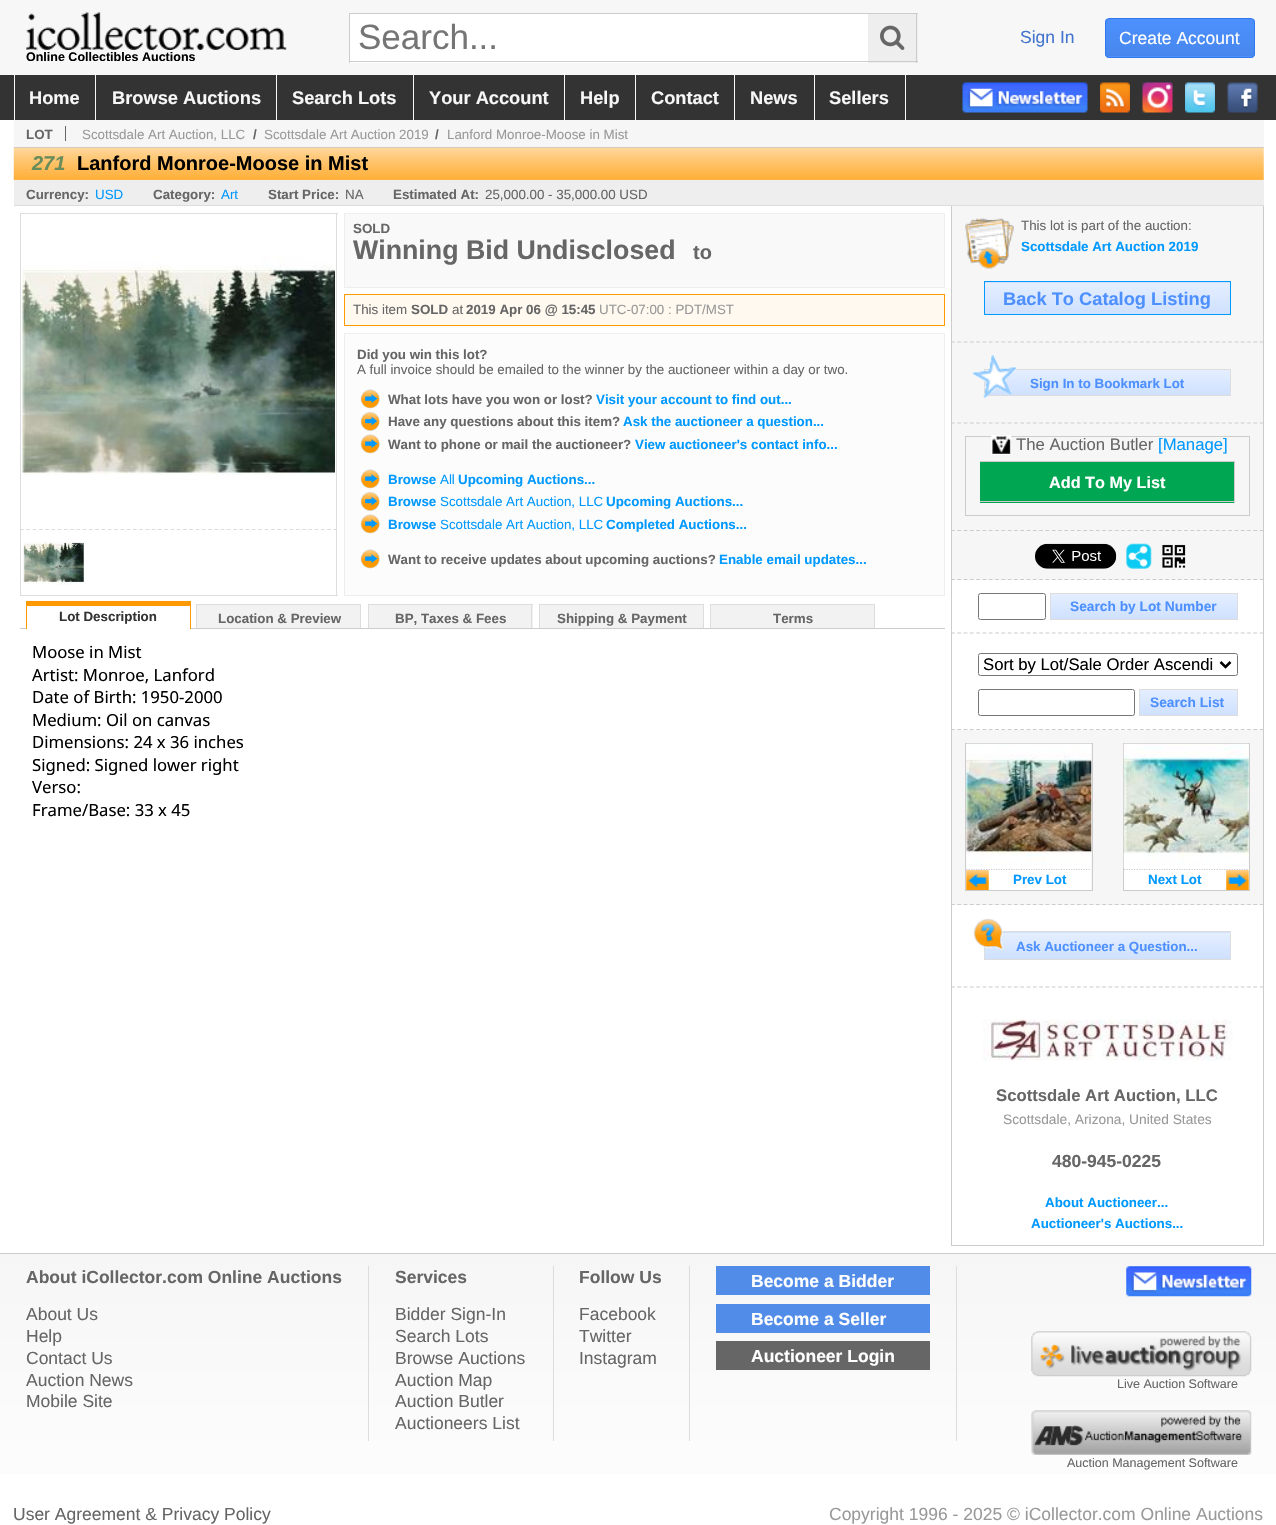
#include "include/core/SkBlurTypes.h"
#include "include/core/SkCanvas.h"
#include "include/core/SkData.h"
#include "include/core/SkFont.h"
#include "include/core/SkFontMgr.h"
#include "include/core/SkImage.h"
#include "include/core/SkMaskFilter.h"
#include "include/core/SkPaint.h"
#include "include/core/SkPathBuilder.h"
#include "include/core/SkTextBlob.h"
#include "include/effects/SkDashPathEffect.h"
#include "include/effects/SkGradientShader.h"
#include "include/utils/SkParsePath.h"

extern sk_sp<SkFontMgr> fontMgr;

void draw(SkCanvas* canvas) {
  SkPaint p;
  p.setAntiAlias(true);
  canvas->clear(SK_ColorWHITE);
  p.setColor(SkColorSetRGB(247, 247, 247));
  canvas->drawRect(SkRect::MakeLTRB(0, 0, 1276, 75), p);
  p.setColor(SK_ColorWHITE);
  canvas->drawRect(SkRect::MakeLTRB(350, 14, 868, 63), p);
  p.setColor(SkColorSetRGB(204, 204, 204));
  canvas->drawRect(SkRect::MakeLTRB(349, 13, 918, 14), p);
  canvas->drawRect(SkRect::MakeLTRB(349, 61, 868, 62), p);
  canvas->drawRect(SkRect::MakeLTRB(349, 13, 350, 63), p);
  p.setColor(SkColorSetRGB(238, 238, 238));
  canvas->drawRect(SkRect::MakeLTRB(868, 14, 918, 63), p);
  p.setColor(SkColorSetRGB(204, 204, 204));
  canvas->drawRect(SkRect::MakeLTRB(916, 13, 917, 63), p);
  canvas->drawRect(SkRect::MakeLTRB(868, 61, 918, 62), p);
  canvas->drawImageRect(SkImages::DeferredFromEncodedData(SkData::MakeFromFileName("images/1.png")), SkRect::MakeLTRB(880, 25, 905, 50), SkSamplingOptions());
  canvas->save();
  canvas->clipPath(SkPathBuilder().moveTo(1109, 18).lineTo(1251, 18).cubicTo(1253, 18, 1255, 20, 1255, 22).lineTo(1255, 54).cubicTo(1255, 56, 1253, 58, 1251, 58).lineTo(1109, 58).cubicTo(1107, 58, 1105, 56, 1105, 54).lineTo(1105, 22).cubicTo(1105, 20, 1107, 18, 1109, 18).close().detach(), true);
  {
    const SkColor colors[] = {SkColorSetRGB(77, 144, 254), SkColorSetRGB(71, 135, 237)};
    const float stops[] = {0, 1};
    const SkPoint ends[] = {{1180, 19}, {1180, 56}};
    p.setShader(SkGradientShader::MakeLinear(ends, colors, stops, 2, SkTileMode::kClamp));
    p.setAlpha(255);
  }
  canvas->drawRect(SkRect::MakeLTRB(1105, 19, 1255, 56), p);
  {
    const SkColor colors[] = {SkColorSetRGB(77, 144, 254), SkColorSetRGB(71, 135, 237)};
    const float stops[] = {0, 1};
    const SkPoint ends[] = {{1180, 56}, {1180, 94}};
    p.setShader(SkGradientShader::MakeLinear(ends, colors, stops, 2, SkTileMode::kClamp));
    p.setAlpha(255);
  }
  canvas->drawRect(SkRect::MakeLTRB(1105, 56, 1255, 58), p);
  canvas->restore();
  p.setStyle(SkPaint::kStroke_Style);
  p.setStrokeWidth(1);
  p.setShader(nullptr);
  p.setColor(SkColorSetRGB(48, 121, 237));
  canvas->drawRoundRect(SkRect::MakeLTRB(1105.5f, 18.5f, 1254.5f, 57.5f), 3.5f, 3.5f, p);
  canvas->drawImageRect(SkImages::DeferredFromEncodedData(SkData::MakeFromFileName("images/2.png")), SkRect::MakeLTRB(26, 12, 287, 50), SkSamplingOptions());
  p.setStyle(SkPaint::kFill_Style);
  p.setColor(SkColorSetRGB(51, 51, 51));
  canvas->drawRect(SkRect::MakeLTRB(0, 75, 1276, 120), p);
  p.setColor(SkColorSetRGB(247, 247, 247));
  canvas->drawRect(SkRect::MakeLTRB(14, 75, 15, 120), p);
  canvas->drawRect(SkRect::MakeLTRB(95, 75, 96, 120), p);
  canvas->drawRect(SkRect::MakeLTRB(276, 75, 277, 120), p);
  canvas->drawRect(SkRect::MakeLTRB(413, 75, 414, 120), p);
  canvas->drawRect(SkRect::MakeLTRB(564, 75, 565, 120), p);
  canvas->drawRect(SkRect::MakeLTRB(635, 75, 636, 120), p);
  canvas->drawRect(SkRect::MakeLTRB(734, 75, 735, 120), p);
  canvas->drawRect(SkRect::MakeLTRB(905, 75, 906, 120), p);
  canvas->drawRect(SkRect::MakeLTRB(814, 75, 815, 120), p);
  canvas->drawImageRect(SkImages::DeferredFromEncodedData(SkData::MakeFromFileName("images/3.png")), SkRect::MakeLTRB(962, 82, 1088, 113), SkSamplingOptions());
  canvas->drawImageRect(SkImages::DeferredFromEncodedData(SkData::MakeFromFileName("images/4.png")), SkRect::MakeLTRB(1100, 82, 1130, 113), SkSamplingOptions());
  canvas->drawImageRect(SkImages::DeferredFromEncodedData(SkData::MakeFromFileName("images/5.png")), SkRect::MakeLTRB(1142, 82, 1173, 113), SkSamplingOptions());
  canvas->drawImageRect(SkImages::DeferredFromEncodedData(SkData::MakeFromFileName("images/6.png")), SkRect::MakeLTRB(1185, 82, 1215, 113), SkSamplingOptions());
  canvas->drawImageRect(SkImages::DeferredFromEncodedData(SkData::MakeFromFileName("images/7.png")), SkRect::MakeLTRB(1227, 82, 1258, 113), SkSamplingOptions());
  p.setColor(SkColorSetRGB(246, 246, 246));
  canvas->drawRect(SkRect::MakeLTRB(14, 120, 1264, 148), p);
  p.setColor(SkColorSetRGB(102, 102, 102));
  canvas->drawRect(SkRect::MakeLTRB(65, 126, 66, 141), p);
  canvas->drawImageRect(SkImages::DeferredFromEncodedData(SkData::MakeFromFileName("images/8.png")), SkRect::MakeLTRB(13, 147, 1264, 180), SkSamplingOptions());
  p.setColor(SkColorSetRGB(238, 238, 238));
  canvas->drawRect(SkRect::MakeLTRB(14, 180, 1264, 205), p);
  p.setColor(SkColorSetRGB(221, 221, 221));
  canvas->drawRect(SkRect::MakeLTRB(14, 205, 1264, 206), p);
  canvas->drawRect(SkRect::MakeLTRB(20, 213, 338, 214), p);
  canvas->drawRect(SkRect::MakeLTRB(336, 213, 337, 529), p);
  canvas->drawRect(SkRect::MakeLTRB(20, 213, 21, 529), p);
  canvas->drawImageRect(SkImages::DeferredFromEncodedData(SkData::MakeFromFileName("images/9.png")), SkRect::MakeLTRB(22, 256, 335, 475), SkSamplingOptions());
  p.setStyle(SkPaint::kStroke_Style);
  p.setStrokeWidth(1.2f);
  p.setPathEffect(SkDashPathEffect::Make({{3.75f, 2.52f}}, 0));
  canvas->drawPath(SkPathBuilder().moveTo(20, 529.5f).lineTo(337.5f, 529.5f).detach(), p);
  p.setPathEffect(nullptr);
  p.setStyle(SkPaint::kFill_Style);
  canvas->drawRect(SkRect::MakeLTRB(336, 529, 337, 596), p);
  canvas->drawRect(SkRect::MakeLTRB(20, 595, 338, 596), p);
  canvas->drawRect(SkRect::MakeLTRB(20, 529, 21, 596), p);
  canvas->drawImageRect(SkImages::DeferredFromEncodedData(SkData::MakeFromFileName("images/10.png")), SkRect::MakeLTRB(23, 542, 84, 585), SkSamplingOptions());
  p.setColor(SkColorSetRGB(249, 249, 249));
  canvas->drawRect(SkRect::MakeLTRB(344.5f, 213.5f, 944.5f, 287.5f), p);
  p.setStyle(SkPaint::kStroke_Style);
  p.setStrokeWidth(1);
  p.setColor(SkColorSetRGB(238, 238, 238));
  canvas->drawRect(SkRect::MakeLTRB(344.5f, 213.5f, 944.5f, 287.5f), p);
  p.setStyle(SkPaint::kFill_Style);
  p.setColor(SkColorSetRGB(255, 249, 240));
  canvas->drawRect(SkRect::MakeLTRB(344.5f, 294.5f, 944.5f, 325.5f), p);
  p.setStyle(SkPaint::kStroke_Style);
  p.setColor(SkColorSetRGB(255, 153, 0));
  canvas->drawRect(SkRect::MakeLTRB(344.5f, 294.5f, 944.5f, 325.5f), p);
  p.setStyle(SkPaint::kFill_Style);
  p.setColor(SkColorSetRGB(252, 252, 252));
  canvas->drawRect(SkRect::MakeLTRB(344.5f, 333.5f, 944.5f, 595.5f), p);
  p.setStyle(SkPaint::kStroke_Style);
  p.setColor(SkColorSetRGB(238, 238, 238));
  canvas->drawRect(SkRect::MakeLTRB(344.5f, 333.5f, 944.5f, 595.5f), p);
  canvas->drawImageRect(SkImages::DeferredFromEncodedData(SkData::MakeFromFileName("images/11.png")), SkRect::MakeLTRB(360, 389, 380, 409), SkSamplingOptions());
  canvas->drawImageRect(SkImages::DeferredFromEncodedData(SkData::MakeFromFileName("images/12.png")), SkRect::MakeLTRB(360, 412, 380, 431), SkSamplingOptions());
  canvas->drawImageRect(SkImages::DeferredFromEncodedData(SkData::MakeFromFileName("images/11.png")), SkRect::MakeLTRB(360, 434, 380, 454), SkSamplingOptions());
  canvas->drawImageRect(SkImages::DeferredFromEncodedData(SkData::MakeFromFileName("images/11.png")), SkRect::MakeLTRB(360, 469, 380, 489), SkSamplingOptions());
  canvas->drawImageRect(SkImages::DeferredFromEncodedData(SkData::MakeFromFileName("images/12.png")), SkRect::MakeLTRB(360, 492, 380, 511), SkSamplingOptions());
  canvas->drawImageRect(SkImages::DeferredFromEncodedData(SkData::MakeFromFileName("images/11.png")), SkRect::MakeLTRB(360, 514, 380, 534), SkSamplingOptions());
  canvas->drawImageRect(SkImages::DeferredFromEncodedData(SkData::MakeFromFileName("images/11.png")), SkRect::MakeLTRB(360, 549, 380, 569), SkSamplingOptions());
  p.setStyle(SkPaint::kFill_Style);
  p.setColor(SkColorSetRGB(204, 204, 204));
  canvas->drawRect(SkRect::MakeLTRB(20, 628, 945, 629), p);
  p.setColor(SK_ColorWHITE);
  canvas->drawRect(SkRect::MakeLTRB(27, 628, 190, 629), p);
  p.setColor(SkColorSetRGB(255, 153, 0));
  canvas->drawRect(SkRect::MakeLTRB(26, 601, 191, 606), p);
  canvas->drawRect(SkRect::MakeLTRB(190, 601, 191, 629), p);
  canvas->drawRect(SkRect::MakeLTRB(26, 601, 27, 629), p);
  p.setColor(SkColorSetRGB(242, 242, 242));
  canvas->drawRect(SkRect::MakeLTRB(197, 605, 360, 628), p);
  p.setColor(SkColorSetRGB(221, 221, 221));
  canvas->drawRect(SkRect::MakeLTRB(196, 604, 361, 605), p);
  canvas->drawRect(SkRect::MakeLTRB(360, 604, 361, 628), p);
  canvas->drawRect(SkRect::MakeLTRB(196, 604, 197, 628), p);
  p.setColor(SkColorSetRGB(242, 242, 242));
  canvas->drawRect(SkRect::MakeLTRB(369, 605, 533, 628), p);
  p.setColor(SkColorSetRGB(221, 221, 221));
  canvas->drawRect(SkRect::MakeLTRB(368, 604, 533, 605), p);
  canvas->drawRect(SkRect::MakeLTRB(531, 604, 532, 628), p);
  canvas->drawRect(SkRect::MakeLTRB(368, 604, 369, 628), p);
  p.setColor(SkColorSetRGB(242, 242, 242));
  canvas->drawRect(SkRect::MakeLTRB(540, 605, 703, 628), p);
  p.setColor(SkColorSetRGB(221, 221, 221));
  canvas->drawRect(SkRect::MakeLTRB(539, 604, 704, 605), p);
  canvas->drawRect(SkRect::MakeLTRB(703, 604, 704, 628), p);
  canvas->drawRect(SkRect::MakeLTRB(539, 604, 540, 628), p);
  p.setColor(SkColorSetRGB(242, 242, 242));
  canvas->drawRect(SkRect::MakeLTRB(711, 605, 874, 628), p);
  p.setColor(SkColorSetRGB(221, 221, 221));
  canvas->drawRect(SkRect::MakeLTRB(710, 604, 875, 605), p);
  canvas->drawRect(SkRect::MakeLTRB(874, 604, 875, 628), p);
  canvas->drawRect(SkRect::MakeLTRB(710, 604, 711, 628), p);
  p.setColor(SkColorSetRGB(246, 246, 246));
  canvas->drawRect(SkRect::MakeLTRB(952, 206, 1263, 531), p);
  p.setColor(SkColorSetRGB(204, 204, 204));
  canvas->drawRect(SkRect::MakeLTRB(1263, 206, 1264, 531), p);
  p.setStyle(SkPaint::kStroke_Style);
  p.setStrokeWidth(1.2f);
  p.setPathEffect(SkDashPathEffect::Make({{3.75f, 2.55f}}, 0));
  canvas->drawPath(SkPathBuilder().moveTo(951, 342).lineTo(1264, 342).detach(), p);
  p.setPathEffect(nullptr);
  p.setStyle(SkPaint::kFill_Style);
  canvas->drawRect(SkRect::MakeLTRB(951, 206, 952, 343), p);
  canvas->drawImageRect(SkImages::DeferredFromEncodedData(SkData::MakeFromFileName("images/13.png")), SkRect::MakeLTRB(965, 218, 1014, 269), SkSamplingOptions());
  {
    const SkColor colors[] = {SkColorSetRGB(228, 238, 255), SkColorSetRGB(207, 225, 255)};
    const float stops[] = {0, 1};
    const SkPoint ends[] = {{1108, 251}, {1108, 283}};
    p.setShader(SkGradientShader::MakeLinear(ends, colors, stops, 2, SkTileMode::kClamp));
    p.setAlpha(255);
  }
  canvas->drawRect(SkRect::MakeLTRB(984, 282, 1231, 283), p);
  {
    const SkColor colors[] = {SkColorSetRGB(228, 238, 255), SkColorSetRGB(207, 225, 255)};
    const float stops[] = {0, 1};
    const SkPoint ends[] = {{1108, 283}, {1108, 314}};
    p.setShader(SkGradientShader::MakeLinear(ends, colors, stops, 2, SkTileMode::kClamp));
    p.setAlpha(255);
  }
  canvas->drawRect(SkRect::MakeLTRB(985, 283, 1230, 314), p);
  p.setStyle(SkPaint::kStroke_Style);
  p.setStrokeWidth(1);
  p.setShader(nullptr);
  p.setColor(SkColorSetRGB(0, 153, 255));
  canvas->drawRect(SkRect::MakeLTRB(984.5f, 281.5f, 1230.5f, 314.5f), p);
  p.setStrokeWidth(1.2f);
  p.setColor(SkColorSetRGB(204, 204, 204));
  p.setPathEffect(SkDashPathEffect::Make({{3.75f, 2.55f}}, 0));
  canvas->drawPath(SkPathBuilder().moveTo(951, 423).lineTo(1264, 423).detach(), p);
  p.setPathEffect(nullptr);
  p.setStyle(SkPaint::kFill_Style);
  canvas->drawRect(SkRect::MakeLTRB(951, 343, 952, 424), p);
  {
    const SkColor colors[] = {SkColorSetRGB(228, 238, 255), SkColorSetRGB(207, 225, 255)};
    const float stops[] = {0, 1};
    const SkPoint ends[] = {{1108, 370}, {1108, 395}};
    p.setShader(SkGradientShader::MakeLinear(ends, colors, stops, 2, SkTileMode::kClamp));
    p.setAlpha(255);
  }
  canvas->drawRect(SkRect::MakeLTRB(985, 370, 1230, 395), p);
  p.setStyle(SkPaint::kStroke_Style);
  p.setStrokeWidth(1);
  p.setShader(nullptr);
  p.setColor(SkColorSetRGB(221, 221, 221));
  canvas->drawRect(SkRect::MakeLTRB(984.5f, 369.5f, 1230.5f, 395.5f), p);
  canvas->drawImageRect(SkImages::DeferredFromEncodedData(SkData::MakeFromFileName("images/14.png")), SkRect::MakeLTRB(972, 354, 1017, 399), SkSamplingOptions());
  p.setStrokeWidth(1.2f);
  p.setColor(SkColorSetRGB(204, 204, 204));
  p.setPathEffect(SkDashPathEffect::Make({{3.75f, 2.55f}}, 0));
  canvas->drawPath(SkPathBuilder().moveTo(951, 530.5f).lineTo(1264, 530.5f).detach(), p);
  p.setPathEffect(nullptr);
  p.setStyle(SkPaint::kFill_Style);
  canvas->drawRect(SkRect::MakeLTRB(951, 424, 952, 531), p);
  p.setStyle(SkPaint::kStroke_Style);
  p.setStrokeWidth(1);
  canvas->drawRect(SkRect::MakeLTRB(965.5f, 436.5f, 1249.5f, 515.5f), p);
  canvas->drawImageRect(SkImages::DeferredFromEncodedData(SkData::MakeFromFileName("images/15.png")), SkRect::MakeLTRB(991, 435, 1012, 455), SkSamplingOptions());
  p.setStyle(SkPaint::kFill_Style);
  p.setColor(SkColorSetRGB(0, 166, 81));
  canvas->drawRect(SkRect::MakeLTRB(980, 462, 1234, 503), p);
  p.setColor(SkColorSetRGB(204, 204, 204));
  canvas->drawRect(SkRect::MakeLTRB(980, 461, 1235, 462), p);
  canvas->drawRect(SkRect::MakeLTRB(1234, 461, 1235, 503), p);
  canvas->drawRect(SkRect::MakeLTRB(980, 501, 1235, 502), p);
  p.setColor(SkColorSetRGB(246, 246, 246));
  canvas->drawRect(SkRect::MakeLTRB(952, 531, 1263, 580), p);
  p.setColor(SkColorSetRGB(204, 204, 204));
  canvas->drawRect(SkRect::MakeLTRB(1263, 531, 1264, 580), p);
  p.setStyle(SkPaint::kStroke_Style);
  p.setStrokeWidth(1.2f);
  p.setPathEffect(SkDashPathEffect::Make({{3.75f, 2.55f}}, 0));
  canvas->drawPath(SkPathBuilder().moveTo(951, 579.5f).lineTo(1264, 579.5f).detach(), p);
  p.setPathEffect(nullptr);
  p.setStyle(SkPaint::kFill_Style);
  canvas->drawRect(SkRect::MakeLTRB(951, 531, 952, 580), p);
  canvas->drawImageRect(SkImages::DeferredFromEncodedData(SkData::MakeFromFileName("images/16.png")), SkRect::MakeLTRB(1035, 543, 1117, 569), SkSamplingOptions());
  canvas->drawImageRect(SkImages::DeferredFromEncodedData(SkData::MakeFromFileName("images/17.png")), SkRect::MakeLTRB(1126, 543, 1152, 569), SkSamplingOptions());
  canvas->drawImageRect(SkImages::DeferredFromEncodedData(SkData::MakeFromFileName("images/18.png")), SkRect::MakeLTRB(1161, 544, 1186, 569), SkSamplingOptions());
  canvas->drawRect(SkRect::MakeLTRB(1263, 580, 1264, 730), p);
  p.setStyle(SkPaint::kStroke_Style);
  p.setPathEffect(SkDashPathEffect::Make({{3.75f, 2.55f}}, 0));
  canvas->drawPath(SkPathBuilder().moveTo(951, 633).lineTo(1264, 633).detach(), p);
  p.setPathEffect(nullptr);
  p.setStyle(SkPaint::kFill_Style);
  canvas->drawRect(SkRect::MakeLTRB(951, 580, 952, 634), p);
  p.setStyle(SkPaint::kStroke_Style);
  p.setStrokeWidth(1);
  p.setColor(SkColorSetRGB(118, 118, 118));
  canvas->drawRoundRect(SkRect::MakeLTRB(978.5f, 593.5f, 1045.5f, 619.5f), 2, 2, p);
  p.setStyle(SkPaint::kFill_Style);
  {
    const SkColor colors[] = {SkColorSetRGB(228, 238, 255), SkColorSetRGB(207, 225, 255)};
    const float stops[] = {0, 1};
    const SkPoint ends[] = {{1144, 594}, {1144, 619}};
    p.setShader(SkGradientShader::MakeLinear(ends, colors, stops, 2, SkTileMode::kClamp));
    p.setAlpha(255);
  }
  canvas->drawRect(SkRect::MakeLTRB(1051, 594, 1237, 619), p);
  p.setStyle(SkPaint::kStroke_Style);
  p.setShader(nullptr);
  p.setColor(SkColorSetRGB(221, 221, 221));
  canvas->drawRect(SkRect::MakeLTRB(1050.5f, 593.5f, 1237.5f, 619.5f), p);
  p.setStrokeWidth(1.2f);
  p.setColor(SkColorSetRGB(204, 204, 204));
  p.setPathEffect(SkDashPathEffect::Make({{3.75f, 2.55f}}, 0));
  canvas->drawPath(SkPathBuilder().moveTo(951, 729.5f).lineTo(1264, 729.5f).detach(), p);
  p.setPathEffect(nullptr);
  p.setStyle(SkPaint::kFill_Style);
  canvas->drawRect(SkRect::MakeLTRB(951, 634, 952, 730), p);
  p.setStyle(SkPaint::kStroke_Style);
  p.setStrokeWidth(1);
  p.setColor(SkColorSetRGB(118, 118, 118));
  canvas->drawRoundRect(SkRect::MakeLTRB(978.5f, 653.5f, 1237.5f, 675.5f), 2, 2, p);
  p.setStrokeWidth(2.5f);
  p.setColor(SK_ColorBLACK);
  canvas->drawPath(SkPathBuilder().moveTo(1220.5f, 662).lineTo(1225.5f, 667).lineTo(1230.5f, 662).detach(), p);
  p.setStrokeWidth(1);
  p.setColor(SkColorSetRGB(118, 118, 118));
  canvas->drawRoundRect(SkRect::MakeLTRB(978.5f, 689.5f, 1134.5f, 715.5f), 2, 2, p);
  p.setStyle(SkPaint::kFill_Style);
  {
    const SkColor colors[] = {SkColorSetRGB(228, 238, 255), SkColorSetRGB(207, 225, 255)};
    const float stops[] = {0, 1};
    const SkPoint ends[] = {{1188, 690}, {1188, 715}};
    p.setShader(SkGradientShader::MakeLinear(ends, colors, stops, 2, SkTileMode::kClamp));
    p.setAlpha(255);
  }
  canvas->drawRect(SkRect::MakeLTRB(1140, 690, 1237, 715), p);
  p.setStyle(SkPaint::kStroke_Style);
  p.setShader(nullptr);
  p.setColor(SkColorSetRGB(221, 221, 221));
  canvas->drawRect(SkRect::MakeLTRB(1139.5f, 689.5f, 1237.5f, 715.5f), p);
  p.setStyle(SkPaint::kFill_Style);
  p.setColor(SkColorSetRGB(246, 246, 246));
  canvas->drawRect(SkRect::MakeLTRB(952, 730, 1263, 905), p);
  p.setColor(SkColorSetRGB(204, 204, 204));
  canvas->drawRect(SkRect::MakeLTRB(1263, 730, 1264, 905), p);
  p.setStyle(SkPaint::kStroke_Style);
  p.setStrokeWidth(1.2f);
  p.setPathEffect(SkDashPathEffect::Make({{3.75f, 2.55f}}, 0));
  canvas->drawPath(SkPathBuilder().moveTo(951, 904.5f).lineTo(1264, 904.5f).detach(), p);
  p.setPathEffect(nullptr);
  p.setStyle(SkPaint::kFill_Style);
  canvas->drawRect(SkRect::MakeLTRB(951, 730, 952, 905), p);
  p.setStyle(SkPaint::kStroke_Style);
  p.setStrokeWidth(1);
  canvas->drawRect(SkRect::MakeLTRB(965.5f, 743.5f, 1092.5f, 890.5f), p);
  p.setStyle(SkPaint::kFill_Style);
  p.setColor(SK_ColorWHITE);
  canvas->drawRect(SkRect::MakeLTRB(966, 869, 1091, 890), p);
  p.setStyle(SkPaint::kStroke_Style);
  p.setStrokeWidth(1.2f);
  p.setColor(SkColorSetRGB(204, 204, 204));
  p.setPathEffect(SkDashPathEffect::Make({{1.25f, 1.25f}}, 0));
  canvas->drawPath(SkPathBuilder().moveTo(966, 869.5f).lineTo(1091, 869.5f).detach(), p);
  p.setPathEffect(nullptr);
  canvas->drawImageRect(SkImages::DeferredFromEncodedData(SkData::MakeFromFileName("images/19.png")), SkRect::MakeLTRB(966, 743, 1092, 869), SkSamplingOptions());
  canvas->drawImageRect(SkImages::DeferredFromEncodedData(SkData::MakeFromFileName("images/20.png")), SkRect::MakeLTRB(966, 870, 989, 890), SkSamplingOptions());
  p.setStrokeWidth(1);
  canvas->drawRect(SkRect::MakeLTRB(1123.5f, 743.5f, 1249.5f, 890.5f), p);
  p.setStyle(SkPaint::kFill_Style);
  p.setColor(SK_ColorWHITE);
  canvas->drawRect(SkRect::MakeLTRB(1124, 869, 1249, 890), p);
  p.setStyle(SkPaint::kStroke_Style);
  p.setStrokeWidth(1.2f);
  p.setColor(SkColorSetRGB(204, 204, 204));
  p.setPathEffect(SkDashPathEffect::Make({{1.25f, 1.25f}}, 0));
  canvas->drawPath(SkPathBuilder().moveTo(1124, 869.5f).lineTo(1249, 869.5f).detach(), p);
  p.setPathEffect(nullptr);
  canvas->drawImageRect(SkImages::DeferredFromEncodedData(SkData::MakeFromFileName("images/21.png")), SkRect::MakeLTRB(1123, 743, 1249, 869), SkSamplingOptions());
  canvas->drawImageRect(SkImages::DeferredFromEncodedData(SkData::MakeFromFileName("images/22.png")), SkRect::MakeLTRB(1226, 870, 1249, 890), SkSamplingOptions());
  p.setStyle(SkPaint::kFill_Style);
  canvas->drawRect(SkRect::MakeLTRB(1263, 905, 1264, 1246), p);
  p.setStyle(SkPaint::kStroke_Style);
  p.setPathEffect(SkDashPathEffect::Make({{3.75f, 2.55f}}, 0));
  canvas->drawPath(SkPathBuilder().moveTo(951, 987).lineTo(1264, 987).detach(), p);
  p.setPathEffect(nullptr);
  p.setStyle(SkPaint::kFill_Style);
  canvas->drawRect(SkRect::MakeLTRB(951, 905, 952, 988), p);
  {
    const SkColor colors[] = {SkColorSetRGB(228, 238, 255), SkColorSetRGB(207, 225, 255)};
    const float stops[] = {0, 1};
    const SkPoint ends[] = {{1108, 906}, {1108, 933}};
    p.setShader(SkGradientShader::MakeLinear(ends, colors, stops, 2, SkTileMode::kClamp));
    p.setAlpha(255);
  }
  canvas->drawRect(SkRect::MakeLTRB(1002, 932, 1231, 933), p);
  {
    const SkColor colors[] = {SkColorSetRGB(228, 238, 255), SkColorSetRGB(207, 225, 255)};
    const float stops[] = {0, 1};
    const SkPoint ends[] = {{1108, 933}, {1108, 959}};
    p.setShader(SkGradientShader::MakeLinear(ends, colors, stops, 2, SkTileMode::kClamp));
    p.setAlpha(255);
  }
  canvas->drawRect(SkRect::MakeLTRB(985, 933, 1230, 959), p);
  p.setStyle(SkPaint::kStroke_Style);
  p.setStrokeWidth(1);
  p.setShader(nullptr);
  p.setColor(SkColorSetRGB(221, 221, 221));
  canvas->drawRect(SkRect::MakeLTRB(984.5f, 931.5f, 1230.5f, 959.5f), p);
  canvas->drawImageRect(SkImages::DeferredFromEncodedData(SkData::MakeFromFileName("images/23.png")), SkRect::MakeLTRB(973, 918, 1004, 950), SkSamplingOptions());
  p.setStyle(SkPaint::kFill_Style);
  p.setColor(SkColorSetRGB(204, 204, 204));
  canvas->drawRect(SkRect::MakeLTRB(951, 1245, 1264, 1246), p);
  canvas->drawRect(SkRect::MakeLTRB(951, 988, 952, 1246), p);
  canvas->drawImageRect(SkImages::DeferredFromEncodedData(SkData::MakeFromFileName("images/24.png")), SkRect::MakeLTRB(982, 1019, 1233, 1061), SkSamplingOptions());
  {
    const SkColor colors[] = {SkColorSetRGB(246, 246, 246), SK_ColorWHITE};
    const float stops[] = {0, 1};
    const SkPoint ends[] = {{638, 1254}, {638, 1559}};
    p.setShader(SkGradientShader::MakeLinear(ends, colors, stops, 2, SkTileMode::kClamp));
    p.setAlpha(255);
  }
  canvas->drawRect(SkRect::MakeLTRB(0, 1254, 1276, 1474), p);
  p.setShader(nullptr);
  p.setColor(SkColorSetRGB(204, 204, 204));
  canvas->drawRect(SkRect::MakeLTRB(0, 1253, 1276, 1254), p);
  p.setColor(SkColorSetRGB(221, 221, 221));
  canvas->drawRect(SkRect::MakeLTRB(368, 1266, 369, 1441), p);
  canvas->drawRect(SkRect::MakeLTRB(553, 1266, 554, 1441), p);
  canvas->drawRect(SkRect::MakeLTRB(689, 1266, 690, 1441), p);
  canvas->drawRect(SkRect::MakeLTRB(956, 1266, 957, 1441), p);
  p.setColor(SkColorSetRGB(81, 140, 233));
  canvas->drawRect(SkRect::MakeLTRB(716, 1266, 930, 1295), p);
  canvas->drawRect(SkRect::MakeLTRB(716, 1304, 930, 1333), p);
  p.setColor(SkColorSetRGB(102, 102, 102));
  canvas->drawRect(SkRect::MakeLTRB(716, 1341, 930, 1370), p);
  canvas->drawImageRect(SkImages::DeferredFromEncodedData(SkData::MakeFromFileName("images/25.png")), SkRect::MakeLTRB(1126, 1266, 1252, 1297), SkSamplingOptions());
  canvas->drawImageRect(SkImages::DeferredFromEncodedData(SkData::MakeFromFileName("images/26.png")), SkRect::MakeLTRB(1031, 1331, 1252, 1377), SkSamplingOptions());
  canvas->drawImageRect(SkImages::DeferredFromEncodedData(SkData::MakeFromFileName("images/27.png")), SkRect::MakeLTRB(1031, 1410, 1252, 1455), SkSamplingOptions());
  SkFont font1(fontMgr->matchFamilyStyle("Liberation Sans", SkFontStyle::Normal()), 35);
  font1.setSubpixel(true);
  p.setColor(SkColorSetRGB(117, 117, 117));
  canvas->drawString("Search...", 358, 49, font1, p);
  SkFont font2(fontMgr->matchFamilyStyle("Liberation Sans", SkFontStyle::Normal()), 17.5f);
  font2.setSubpixel(true);
  p.setColor(SkColorSetRGB(67, 116, 206));
  canvas->drawString("Sign In", 1020, 43, font2, p);
  p.setColor(SK_ColorWHITE);
  canvas->drawString("Create Account", 1119, 44, font2, p);
  SkFont font3(fontMgr->matchFamilyStyle("Liberation Sans", SkFontStyle::Bold()), 12.5f);
  font3.setSubpixel(true);
  p.setColor(SK_ColorBLACK);
  canvas->drawString("Online Collectibles Auctions", 26, 61, font3, p);
  SkFont font4(fontMgr->matchFamilyStyle("Liberation Sans", SkFontStyle::Bold()), 18.25f);
  font4.setSubpixel(true);
  p.setColor(SkColorSetRGB(247, 247, 247));
  canvas->drawString("Home", 29, 104, font4, p);
  canvas->drawString("Browse Auctions", 112, 104, font4, p);
  canvas->drawString("Search Lots", 292, 104, font4, p);
  canvas->drawString("Your Account", 429, 104, font4, p);
  canvas->drawString("Help", 580, 104, font4, p);
  canvas->drawString("Contact", 651, 104, font4, p);
  canvas->drawString("News", 750, 104, font4, p);
  canvas->drawString("Sellers", 829, 104, font4, p);
  SkFont font5(fontMgr->matchFamilyStyle("Liberation Sans", SkFontStyle::Bold()), 13.35f);
  font5.setSubpixel(true);
  p.setColor(SkColorSetRGB(102, 102, 102));
  canvas->drawString("LOT", 26, 139, font5, p);
  SkFont font6(fontMgr->matchFamilyStyle("Liberation Sans", SkFontStyle::Normal()), 13.35f);
  font6.setSubpixel(true);
  p.setColor(SkColorSetRGB(153, 153, 153));
  canvas->drawString("Scottsdale Art Auction, LLC", 82, 139, font6, p);
  p.setColor(SkColorSetRGB(102, 102, 102));
  canvas->drawString("/", 253, 139, font5, p);
  p.setColor(SkColorSetRGB(153, 153, 153));
  canvas->drawString("Scottsdale Art Auction 2019", 264, 139, font6, p);
  p.setColor(SkColorSetRGB(102, 102, 102));
  canvas->drawString("/", 435, 139, font5, p);
  p.setColor(SkColorSetRGB(153, 153, 153));
  canvas->drawString("Lanford Monroe-Moose in Mist", 447, 139, font6, p);
  SkFont font7(fontMgr->matchFamilyStyle("Liberation Sans", SkFontStyle::BoldItalic()), 20);
  font7.setSubpixel(true);
  p.setColor(SkColorSetRGB(105, 140, 91));
  canvas->drawString("271", 32, 170, font7, p);
  SkFont font8(fontMgr->matchFamilyStyle("Liberation Sans", SkFontStyle::Bold()), 20);
  font8.setSubpixel(true);
  p.setColor(SK_ColorBLACK);
  canvas->drawString("Lanford Monroe-Moose in Mist", 77, 170, font8, p);
  p.setColor(SkColorSetRGB(102, 102, 102));
  canvas->drawString("Currency:", 26, 199, font5, p);
  p.setColor(SkColorSetRGB(0, 153, 255));
  canvas->drawString("USD", 95, 199, font6, p);
  p.setColor(SkColorSetRGB(102, 102, 102));
  canvas->drawString("Category:", 153, 199, font5, p);
  p.setColor(SkColorSetRGB(0, 153, 255));
  canvas->drawString("Art", 221, 199, font6, p);
  p.setColor(SkColorSetRGB(102, 102, 102));
  canvas->drawString("Start Price:", 268, 199, font5, p);
  canvas->drawString("NA", 345, 199, font6, p);
  canvas->drawString("Estimated At:", 393, 199, font5, p);
  canvas->drawString("25,000.00 - 35,000.00 USD", 485, 199, font6, p);
  canvas->drawString("SOLD", 353, 233, font5, p);
  SkFont font9(fontMgr->matchFamilyStyle("Liberation Sans", SkFontStyle::Bold()), 26.75f);
  font9.setSubpixel(true);
  canvas->drawString("Winning Bid Undisclosed", 353, 259, font9, p);
  canvas->drawString("to", 693, 259, font8, p);
  canvas->drawString("This item", 353, 314, font6, p);
  canvas->drawString("SOLD", 411, 314, font5, p);
  canvas->drawString("at", 452, 314, font6, p);
  canvas->drawString("2019 Apr 06 @ 15:45", 466, 314, font5, p);
  p.setColor(SkColorSetRGB(153, 153, 153));
  canvas->drawString("UTC-07:00 : PDT/MST", 599, 314, font6, p);
  p.setColor(SkColorSetRGB(102, 102, 102));
  canvas->drawString("Did you win this lot?", 357, 359, font5, p);
  canvas->drawString("A full invoice should be emailed to the winner by the auctioneer within a day or two.", 357, 374, font6, p);
  canvas->drawString("What lots have you won or lost?", 388, 404, font5, p);
  p.setColor(SkColorSetRGB(0, 153, 255));
  canvas->drawString("Visit your account to find out...", 596, 404, font5, p);
  p.setColor(SkColorSetRGB(102, 102, 102));
  canvas->drawString("Have any questions about this item?", 388, 426, font5, p);
  p.setColor(SkColorSetRGB(0, 153, 255));
  canvas->drawString("Ask the auctioneer a question...", 623, 426, font5, p);
  p.setColor(SkColorSetRGB(102, 102, 102));
  canvas->drawString("Want to phone or mail the auctioneer?", 388, 449, font5, p);
  p.setColor(SkColorSetRGB(0, 153, 255));
  canvas->drawString("View auctioneer's contact info...", 635, 449, font5, p);
  canvas->drawString("Browse", 388, 484, font5, p);
  canvas->drawString("All", 440, 484, font6, p);
  canvas->drawString("Upcoming Auctions...", 458, 484, font5, p);
  canvas->drawString("Browse", 388, 506, font5, p);
  canvas->drawString("Scottsdale Art Auction, LLC", 440, 506, font6, p);
  canvas->drawString("Upcoming Auctions...", 606, 506, font5, p);
  canvas->drawString("Browse", 388, 529, font5, p);
  canvas->drawString("Scottsdale Art Auction, LLC", 440, 529, font6, p);
  canvas->drawString("Completed Auctions...", 606, 529, font5, p);
  p.setColor(SkColorSetRGB(102, 102, 102));
  canvas->drawString("Want to receive updates about upcoming auctions?", 388, 564, font5, p);
  p.setColor(SkColorSetRGB(0, 153, 255));
  canvas->drawString("Enable email updates...", 719, 564, font5, p);
  p.setColor(SkColorSetRGB(51, 51, 51));
  canvas->drawString("Lot Description", 59, 621, font5, p);
  p.setColor(SkColorSetRGB(102, 102, 102));
  canvas->drawString("Location & Preview", 218, 623, font5, p);
  canvas->drawString("BP, Taxes & Fees", 395, 623, font5, p);
  canvas->drawString("Shipping & Payment", 557, 623, font5, p);
  canvas->drawString("Terms", 773, 623, font5, p);
  SkFont font10(fontMgr->matchFamilyStyle("Noto Sans", SkFontStyle::Normal()), 16.7f);
  font10.setSubpixel(true);
  p.setColor(SK_ColorBLACK);
  canvas->drawString("Moose in Mist", 32, 658, font10, p);
  canvas->drawString("Artist: Monroe, Lanford", 32, 681, font10, p);
  canvas->drawString("Date of Birth: 1950-2000", 32, 703, font10, p);
  canvas->drawString("Medium: Oil on canvas", 32, 726, font10, p);
  canvas->drawString("Dimensions: 24 x 36 inches", 32, 748, font10, p);
  canvas->drawString("Signed: Signed lower right", 32, 771, font10, p);
  canvas->drawString("Verso:", 32, 793, font10, p);
  canvas->drawString("Frame/Base: 33 x 45", 32, 816, font10, p);
  p.setColor(SkColorSetRGB(102, 102, 102));
  canvas->drawString("This lot is part of the auction:", 1021, 230, font6, p);
  p.setColor(SkColorSetRGB(0, 153, 255));
  canvas->drawString("Scottsdale Art Auction 2019", 1021, 251, font5, p);
  p.setColor(SkColorSetRGB(77, 144, 254));
  canvas->drawString("Back To Catalog Listing", 1003, 305, font4, p);
  canvas->drawString("Sign In to Bookmark Lot", 1030, 388, font5, p);
  SkFont font11(fontMgr->matchFamilyStyle("Liberation Sans", SkFontStyle::Normal()), 16.7f);
  font11.setSubpixel(true);
  p.setColor(SkColorSetRGB(102, 102, 102));
  canvas->drawString("The Auction Butler", 1016, 450, font11, p);
  p.setColor(SkColorSetRGB(0, 153, 255));
  canvas->drawString("[Manage]", 1158, 450, font11, p);
  SkFont font12(fontMgr->matchFamilyStyle("Liberation Sans", SkFontStyle::Bold()), 16.25f);
  font12.setSubpixel(true);
  p.setColor(SK_ColorWHITE);
  canvas->drawString("Add To My List", 1049, 488, font12, p);
  SkFont font13(fontMgr->matchFamilyStyle("Liberation Sans", SkFontStyle::Bold()), 13.75f);
  font13.setSubpixel(true);
  p.setColor(SkColorSetRGB(77, 144, 254));
  canvas->drawString("Search by Lot Number", 1070, 611, font13, p);
  p.setColor(SK_ColorBLACK);
  canvas->drawString("Sort by Lot/Sale Order Ascendi", 983, 670, font11, p);
  p.setColor(SkColorSetRGB(77, 144, 254));
  canvas->drawString("Search List", 1150, 707, font13, p);
  p.setColor(SkColorSetRGB(0, 153, 255));
  canvas->drawString("Prev Lot", 1013, 884, font5, p);
  canvas->drawString("Next Lot", 1148, 884, font5, p);
  p.setColor(SkColorSetRGB(77, 144, 254));
  canvas->drawString("Ask Auctioneer a Question...", 1016, 951, font5, p);
  SkFont font14(fontMgr->matchFamilyStyle("Liberation Sans", SkFontStyle::Bold()), 16.7f);
  font14.setSubpixel(true);
  p.setColor(SkColorSetRGB(102, 102, 102));
  canvas->drawString("Scottsdale Art Auction, LLC", 996, 1101, font14, p);
  SkFont font15(fontMgr->matchFamilyStyle("Liberation Sans", SkFontStyle::Normal()), 13.75f);
  font15.setSubpixel(true);
  p.setColor(SkColorSetRGB(153, 153, 153));
  canvas->drawString("Scottsdale, Arizona, United States", 1003, 1124, font15, p);
  SkFont font16(fontMgr->matchFamilyStyle("Liberation Sans", SkFontStyle::Bold()), 17.5f);
  font16.setSubpixel(true);
  p.setColor(SkColorSetRGB(102, 102, 102));
  canvas->drawString("480-945-0225", 1052, 1167, font16, p);
  p.setColor(SkColorSetRGB(0, 153, 255));
  canvas->drawString("About Auctioneer...", 1045, 1207, font5, p);
  canvas->drawString("Auctioneer's Auctions...", 1031, 1228, font5, p);
  p.setColor(SkColorSetRGB(102, 102, 102));
  canvas->drawString("About iCollector.com Online Auctions", 26, 1283, font16, p);
  canvas->drawString("About Us", 26, 1320, font2, p);
  canvas->drawString("Help", 26, 1342, font2, p);
  canvas->drawString("Contact Us", 26, 1364, font2, p);
  canvas->drawString("Auction News", 26, 1386, font2, p);
  canvas->drawString("Mobile Site", 26, 1407, font2, p);
  canvas->drawString("Services", 395, 1283, font16, p);
  canvas->drawString("Bidder Sign-In", 395, 1320, font2, p);
  canvas->drawString("Search Lots", 395, 1342, font2, p);
  canvas->drawString("Browse Auctions", 395, 1364, font2, p);
  canvas->drawString("Auction Map", 395, 1386, font2, p);
  canvas->drawString("Auction Butler", 395, 1407, font2, p);
  canvas->drawString("Auctioneers List", 395, 1429, font2, p);
  canvas->drawString("Follow Us", 579, 1283, font16, p);
  canvas->drawString("Facebook", 579, 1320, font2, p);
  canvas->drawString("Twitter", 579, 1342, font2, p);
  canvas->drawString("Instagram", 579, 1364, font2, p);
  p.setColor(SK_ColorWHITE);
  canvas->drawString("Become a Bidder", 751, 1287, font16, p);
  canvas->drawString("Become a Seller", 751, 1325, font16, p);
  canvas->drawString("Auctioneer Login", 751, 1362, font16, p);
  SkFont font17(fontMgr->matchFamilyStyle("Liberation Sans", SkFontStyle::Normal()), 12.5f);
  font17.setSubpixel(true);
  p.setColor(SkColorSetRGB(102, 102, 102));
  canvas->drawString("Live Auction Software", 1117, 1388, font17, p);
  canvas->drawString("Auction Management Software", 1067, 1467, font17, p);
  canvas->drawString("User Agreement & Privacy Policy", 13, 1520, font2, p);
  p.setColor(SkColorSetRGB(153, 153, 153));
  canvas->drawString("Copyright 1996 - 2025 © iCollector.com Online Auctions", 829, 1520, font2, p);
}
